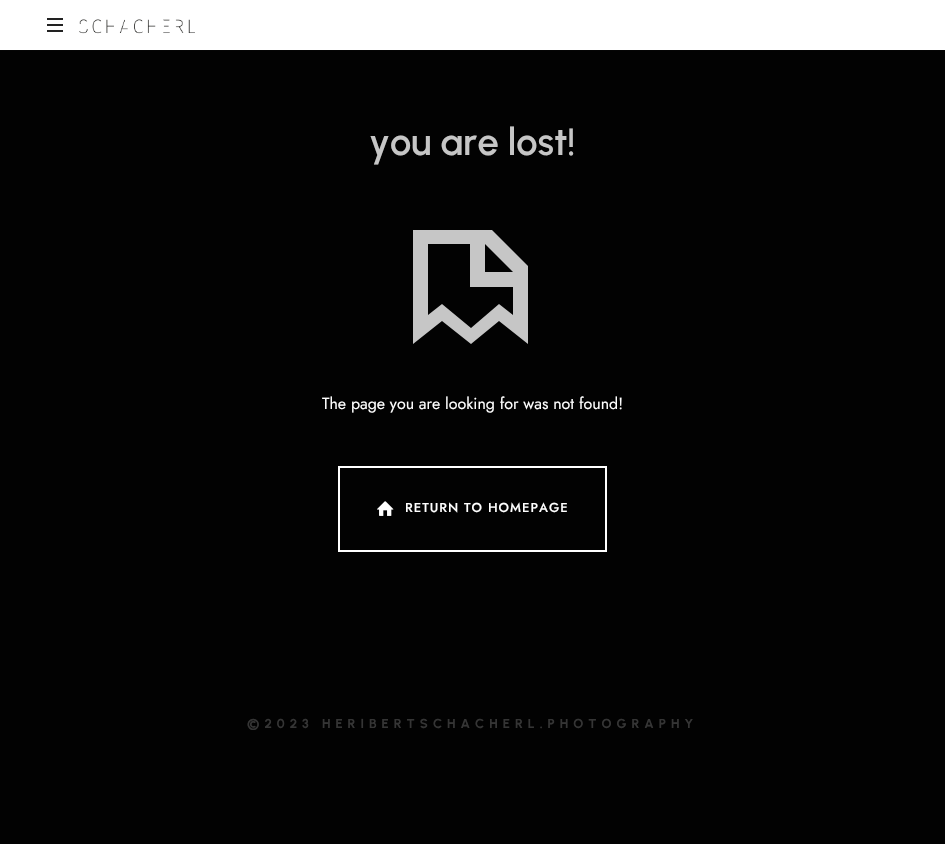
#include "include/core/SkBlurTypes.h"
#include "include/core/SkCanvas.h"
#include "include/core/SkData.h"
#include "include/core/SkFont.h"
#include "include/core/SkFontMgr.h"
#include "include/core/SkImage.h"
#include "include/core/SkMaskFilter.h"
#include "include/core/SkPaint.h"
#include "include/core/SkPathBuilder.h"
#include "include/core/SkTextBlob.h"
#include "include/effects/SkDashPathEffect.h"
#include "include/effects/SkGradientShader.h"
#include "include/utils/SkParsePath.h"

extern sk_sp<SkFontMgr> fontMgr;

void draw(SkCanvas* canvas) {
  SkPaint p;
  p.setAntiAlias(true);
  auto spacedText = [&](const char* s, float x, float y, const SkFont& font, const SkPaint& ink, float letter, float word) {
    std::vector<SkGlyphID> glyphs(font.countText(s, strlen(s), SkTextEncoding::kUTF8));
    std::vector<float> xs(glyphs.size());
    font.textToGlyphs(s, strlen(s), SkTextEncoding::kUTF8, glyphs);
    font.getXPos(glyphs, xs, x);
    float extra = 0;
    for (size_t i = 0; i < glyphs.size(); i++) {
      xs[i] += extra;
      extra += letter + word * (glyphs[i] == font.unicharToGlyph(' '));
    }
    canvas->drawTextBlob(SkTextBlob::MakeFromPosHGlyphs(glyphs, xs, y, font), 0, 0, ink);
  };
  canvas->clear(SkColorSetRGB(2, 2, 2));
  p.setColor(SK_ColorWHITE);
  canvas->drawRect(SkRect::MakeLTRB(0, 0, 945, 50), p);
  p.setColor(SkColorSetRGB(34, 34, 34));
  canvas->drawRect(SkRect::MakeLTRB(47, 24, 63, 26), p);
  canvas->drawRect(SkRect::MakeLTRB(47, 18, 63, 20), p);
  canvas->drawRect(SkRect::MakeLTRB(47, 30, 63, 32), p);
  canvas->drawImageRect(SkImages::DeferredFromEncodedData(SkData::MakeFromFileName("images/1.png")), SkRect::MakeLTRB(79, 19, 195, 34), SkSamplingOptions());
  p.setColor(SkColorSetRGB(5, 5, 5));
  canvas->drawRect(SkRect::MakeLTRB(0, 50, 945, 51), p);
  p.setColor(SkColorSetRGB(198, 198, 198));
  canvas->drawPath(SkPathBuilder().moveTo(492, 230).lineTo(528, 266).lineTo(528, 344).lineTo(499, 321).lineTo(471, 344).lineTo(442, 321).lineTo(413, 344).lineTo(413, 230).close().moveTo(513, 315).lineTo(513, 287).lineTo(470, 287).lineTo(470, 244).lineTo(428, 244).lineTo(428, 315).lineTo(442, 304).lineTo(471, 328).lineTo(499, 304).close().moveTo(485, 272).lineTo(513, 272).lineTo(485, 244).close().detach(), p);
  p.setStyle(SkPaint::kStroke_Style);
  p.setStrokeWidth(2);
  p.setColor(SK_ColorWHITE);
  canvas->drawRect(SkRect::MakeLTRB(339, 467, 606, 551), p);
  canvas->drawImageRect(SkImages::DeferredFromEncodedData(SkData::MakeFromFileName("images/2.png")), SkRect::MakeLTRB(377, 501, 394, 516), SkSamplingOptions());
  SkFont font1(fontMgr->matchFamilyStyle("Urbanist", SkFontStyle(600, SkFontStyle::kNormal_Width, SkFontStyle::kUpright_Slant)), 38);
  font1.setSubpixel(true);
  p.setStyle(SkPaint::kFill_Style);
  p.setColor(SkColorSetRGB(198, 198, 198));
  canvas->drawString("you are lost!", 369, 155, font1, p);
  SkFont font2(fontMgr->matchFamilyStyle("Jost", SkFontStyle::Normal()), 16);
  font2.setSubpixel(true);
  p.setColor(SK_ColorWHITE);
  canvas->drawString("The page you are looking for was not found!", 322, 409, font2, p);
  SkFont font3(fontMgr->matchFamilyStyle("Jost", SkFontStyle(500, SkFontStyle::kNormal_Width, SkFontStyle::kUpright_Slant)), 13);
  font3.setSubpixel(true);
  spacedText("RETURN TO HOMEPAGE", 405, 512, font3, p, 1, 0);
  SkFont font4(fontMgr->matchFamilyStyle("Urbanist", SkFontStyle::Bold()), 13);
  font4.setSubpixel(true);
  p.setColor(SkColorSetRGB(53, 53, 53));
  spacedText("©2023 HERIBERTSCHACHERL.PHOTOGRAPHY", 247, 728, font4, p, 5, 0);
}
